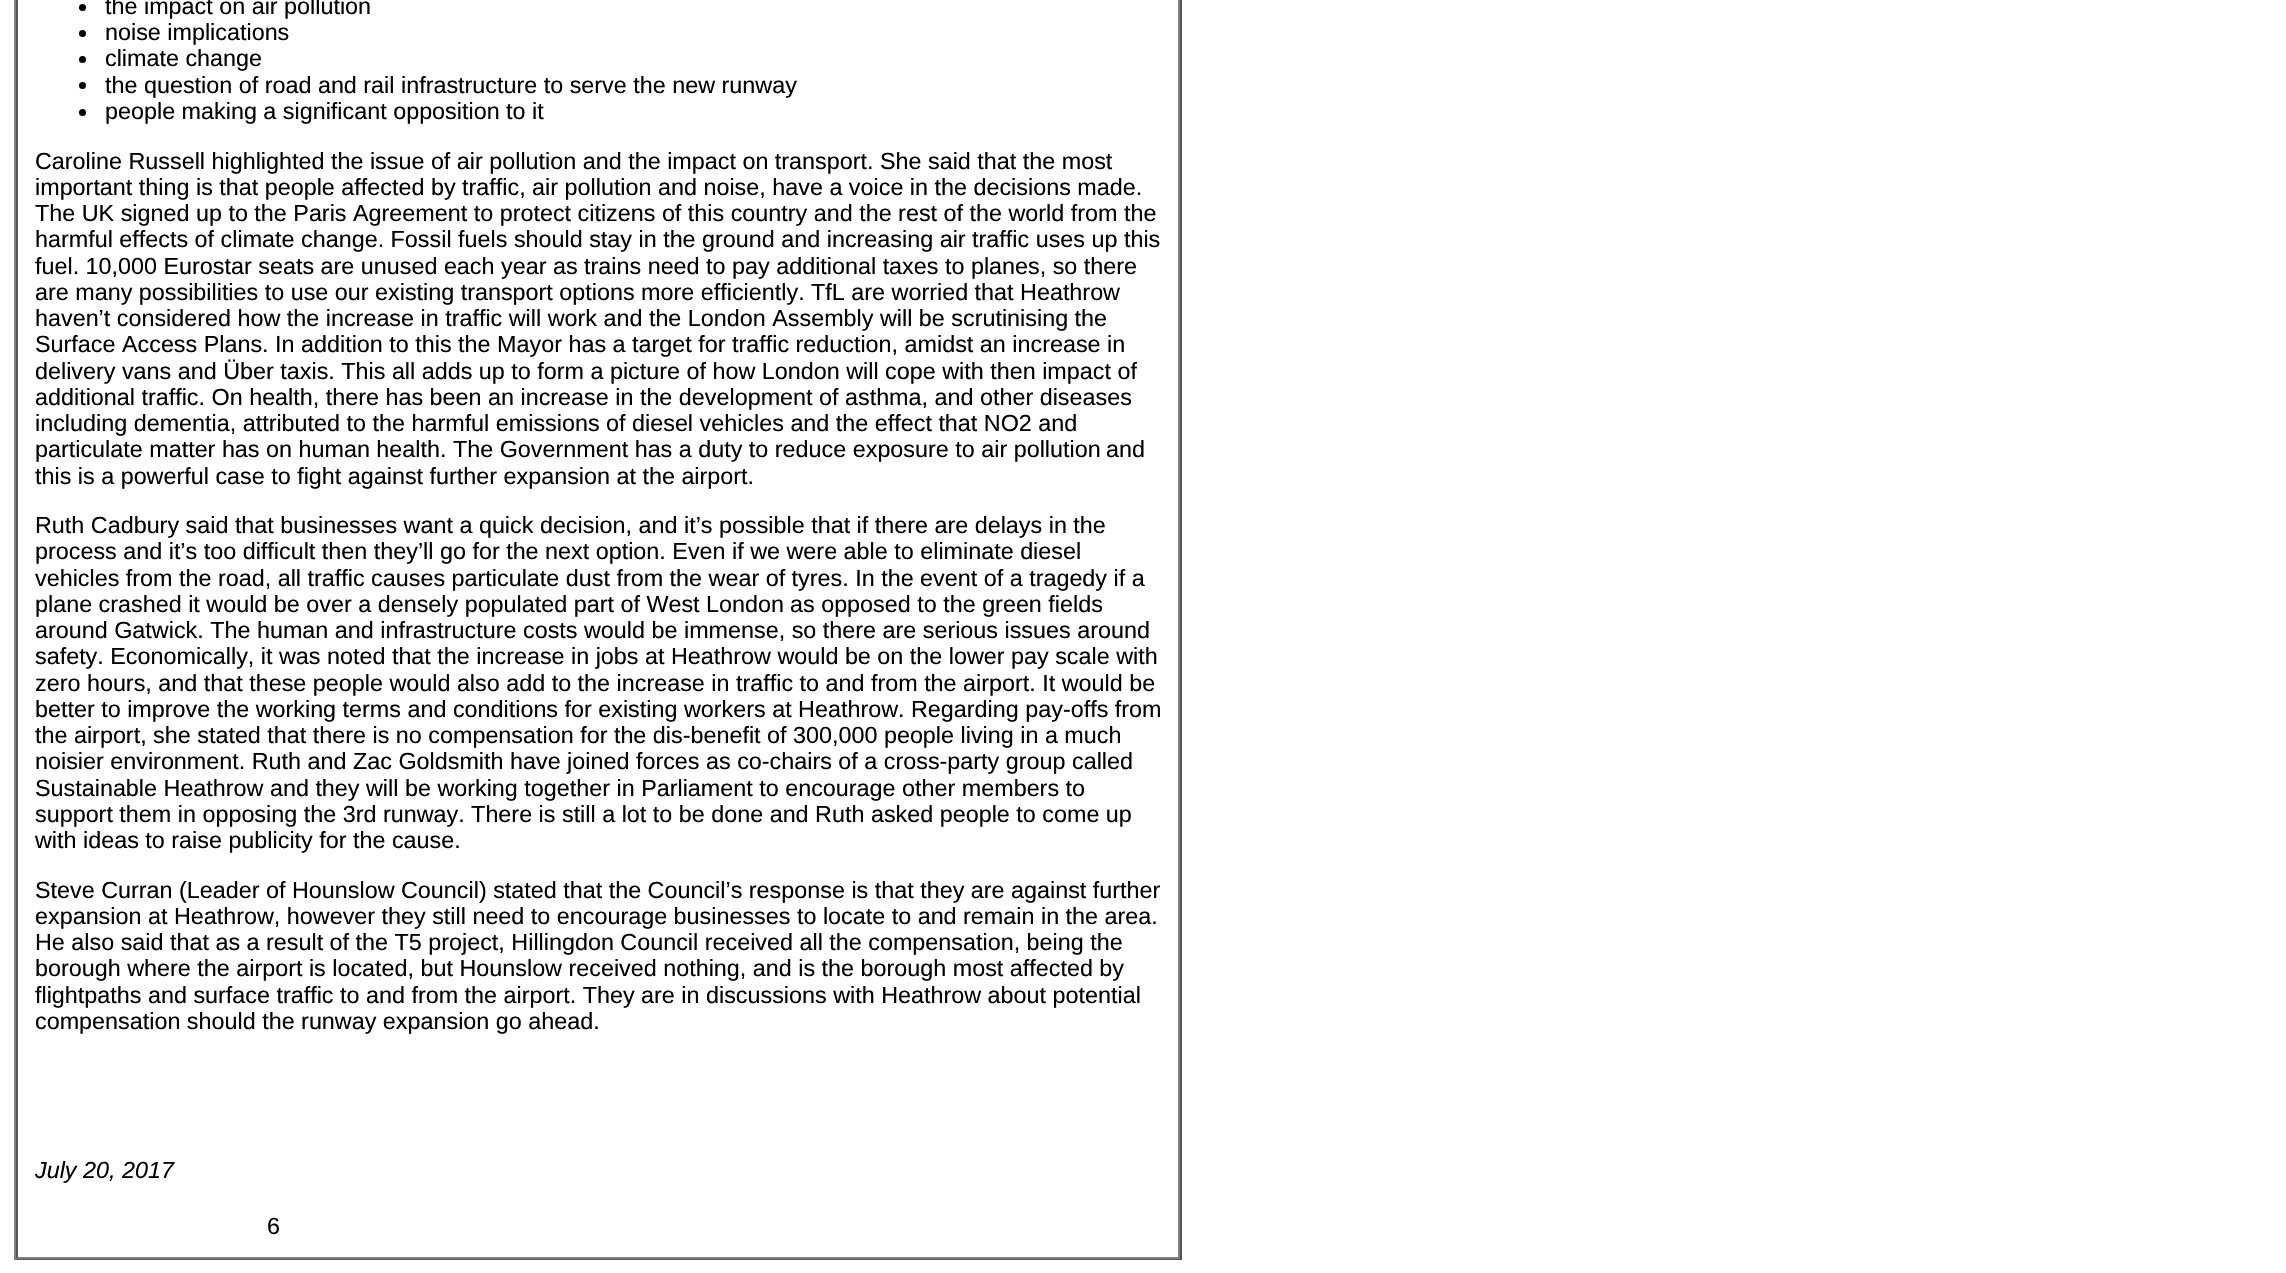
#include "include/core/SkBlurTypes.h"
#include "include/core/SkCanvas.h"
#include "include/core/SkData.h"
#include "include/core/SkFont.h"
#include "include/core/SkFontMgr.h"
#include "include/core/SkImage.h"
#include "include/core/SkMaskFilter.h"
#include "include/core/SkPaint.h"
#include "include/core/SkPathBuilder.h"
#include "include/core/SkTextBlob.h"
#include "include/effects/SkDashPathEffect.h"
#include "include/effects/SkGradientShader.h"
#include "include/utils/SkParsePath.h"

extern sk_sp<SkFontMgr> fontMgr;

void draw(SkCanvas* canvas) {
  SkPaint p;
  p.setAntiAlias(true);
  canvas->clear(SK_ColorWHITE);
  p.setColor(SkColorSetRGB(85, 85, 85));
  canvas->drawRect(SkRect::MakeLTRB(1180, 0, 1182, 1260), p);
  canvas->drawRect(SkRect::MakeLTRB(14, 1258, 1181, 1260), p);
  p.setColor(SkColorSetRGB(128, 128, 128));
  canvas->drawRect(SkRect::MakeLTRB(14, 0, 16, 1260), p);
  canvas->drawRect(SkRect::MakeLTRB(1178, 0, 1180, 1258), p);
  canvas->drawRect(SkRect::MakeLTRB(16, 1257, 1180, 1259), p);
  p.setColor(SkColorSetRGB(85, 85, 85));
  canvas->drawRect(SkRect::MakeLTRB(16, 0, 18, 1258), p);
  p.setColor(SK_ColorBLACK);
  canvas->drawCircle(82.5f, 7.5f, 3.5f, p);
  canvas->drawCircle(82.5f, 33.5f, 3.5f, p);
  canvas->drawCircle(82.5f, 59.5f, 3.5f, p);
  canvas->drawCircle(82.5f, 85.5f, 3.5f, p);
  canvas->drawCircle(82.5f, 112.5f, 3.5f, p);
  SkFont font1(fontMgr->matchFamilyStyle("Liberation Sans", SkFontStyle::Normal()), 23.35f);
  font1.setSubpixel(true);
  canvas->drawString("the impact on air pollution", 105, 14, font1, p);
  canvas->drawString("noise implications", 105, 40, font1, p);
  canvas->drawString("climate change", 105, 66, font1, p);
  canvas->drawString("the question of road and rail infrastructure to serve the new runway", 105, 93, font1, p);
  canvas->drawString("people making a significant opposition to it", 105, 119, font1, p);
  canvas->drawString("Caroline Russell highlighted the issue of air pollution and the impact on transport. She said that the most", 35, 169, font1, p);
  canvas->drawString("important thing is that people affected by traffic, air pollution and noise, have a voice in the decisions made.", 35, 195, font1, p);
  canvas->drawString("The UK signed up to the Paris Agreement to protect citizens of this country and the rest of the world from the", 35, 221, font1, p);
  canvas->drawString("harmful effects of climate change. Fossil fuels should stay in the ground and increasing air traffic uses up this", 35, 247, font1, p);
  canvas->drawString("fuel. 10,000 Eurostar seats are unused each year as trains need to pay additional taxes to planes, so there", 35, 274, font1, p);
  canvas->drawString("are many possibilities to use our existing transport options more efficiently. TfL are worried that Heathrow", 35, 300, font1, p);
  canvas->drawString("haven’t considered how the increase in traffic will work and the London Assembly will be scrutinising the", 35, 326, font1, p);
  canvas->drawString("Surface Access Plans. In addition to this the Mayor has a target for traffic reduction, amidst an increase in", 35, 352, font1, p);
  canvas->drawString("delivery vans and Über taxis. This all adds up to form a picture of how London will cope with then impact of", 35, 379, font1, p);
  canvas->drawString("additional traffic. On health, there has been an increase in the development of asthma, and other diseases", 35, 405, font1, p);
  canvas->drawString("including dementia, attributed to the harmful emissions of diesel vehicles and the effect that NO2 and", 35, 431, font1, p);
  canvas->drawString("particulate matter has on human health. The Government has a duty to reduce exposure to air pollution", 35, 457, font1, p);
  canvas->drawString("and", 1106, 457, font1, p);
  canvas->drawString("this is a powerful case to fight against further expansion at the airport.", 35, 484, font1, p);
  canvas->drawString("Ruth Cadbury said that businesses want a quick decision, and it’s possible that if there are delays in the", 35, 533, font1, p);
  canvas->drawString("process and it’s too difficult then they’ll go for the next option. Even if we were able to eliminate diesel", 35, 559, font1, p);
  canvas->drawString("vehicles from the road, all traffic causes particulate dust from the wear of tyres. In the event of a tragedy if a", 35, 586, font1, p);
  canvas->drawString("plane crashed it would be over a densely populated part of West London", 35, 612, font1, p);
  canvas->drawString("as opposed to the green fields", 790, 612, font1, p);
  canvas->drawString("around Gatwick. The human and infrastructure costs would be immense, so there are serious issues around", 35, 638, font1, p);
  canvas->drawString("safety. Economically, it was noted that the increase in jobs at Heathrow would be on the lower pay scale with", 35, 664, font1, p);
  canvas->drawString("zero hours, and that these people would also add to the increase in traffic to and from the airport. It would be", 35, 691, font1, p);
  canvas->drawString("better to improve the working terms and conditions for existing workers at Heathrow. Regarding pay-offs from", 35, 717, font1, p);
  canvas->drawString("the airport, she stated that there is no compensation for the dis-benefit of 300,000 people living in a much", 35, 743, font1, p);
  canvas->drawString("noisier environment. Ruth and Zac Goldsmith have joined forces as co-chairs of a cross-party group called", 35, 769, font1, p);
  canvas->drawString("Sustainable Heathrow and they will be working together in Parliament to encourage other members to", 35, 796, font1, p);
  canvas->drawString("support them in opposing the 3rd runway. There is still a lot to be done and Ruth asked people to come up", 35, 822, font1, p);
  canvas->drawString("with ideas to raise publicity for the cause.", 35, 848, font1, p);
  canvas->drawString("Steve Curran (Leader of Hounslow Council) stated that the Council’s response is that they are against further", 35, 898, font1, p);
  canvas->drawString("expansion at Heathrow, however they still need to encourage businesses to locate to and remain in the area.", 35, 924, font1, p);
  canvas->drawString("He also said that as a result of the T5 project, Hillingdon Council received all the compensation, being the", 35, 950, font1, p);
  canvas->drawString("borough where the airport is located, but Hounslow received nothing, and is the borough most affected by", 35, 976, font1, p);
  canvas->drawString("flightpaths and surface traffic to and from the airport. They are in discussions with Heathrow about potential", 35, 1003, font1, p);
  canvas->drawString("compensation should the runway expansion go ahead.", 35, 1029, font1, p);
  SkFont font2(fontMgr->matchFamilyStyle("Liberation Sans", SkFontStyle::Italic()), 23.35f);
  font2.setSubpixel(true);
  canvas->drawString("July 20, 2017", 35, 1178, font2, p);
  canvas->drawString("6", 267, 1234, font1, p);
}
